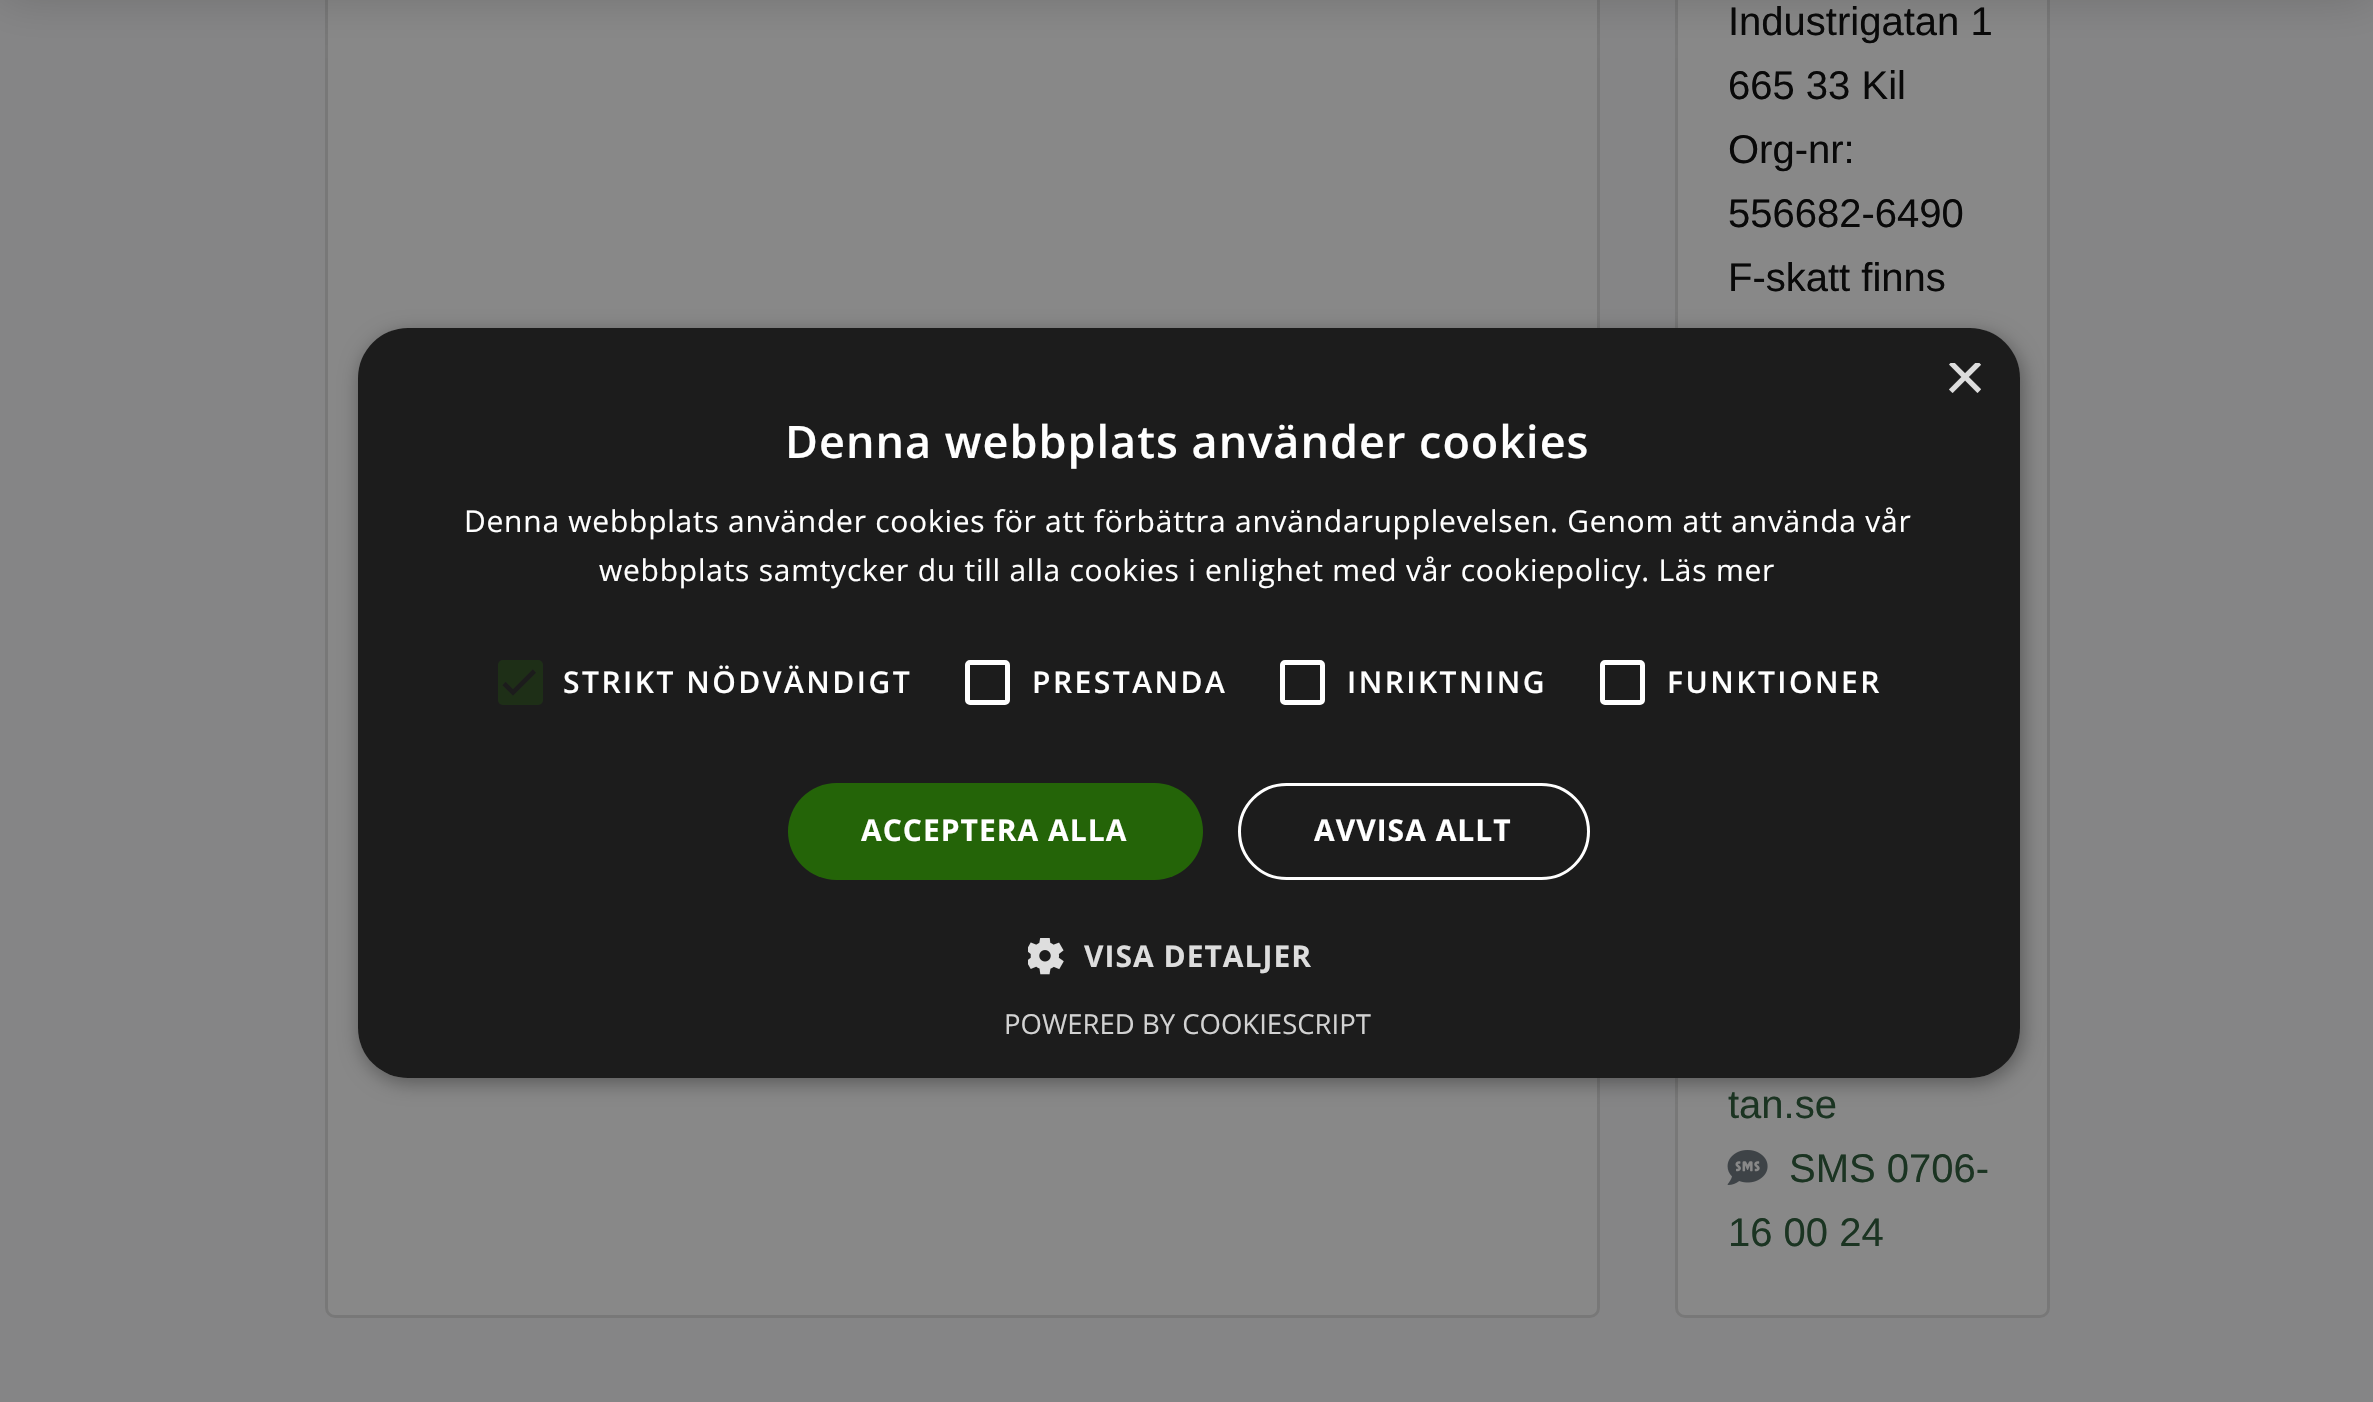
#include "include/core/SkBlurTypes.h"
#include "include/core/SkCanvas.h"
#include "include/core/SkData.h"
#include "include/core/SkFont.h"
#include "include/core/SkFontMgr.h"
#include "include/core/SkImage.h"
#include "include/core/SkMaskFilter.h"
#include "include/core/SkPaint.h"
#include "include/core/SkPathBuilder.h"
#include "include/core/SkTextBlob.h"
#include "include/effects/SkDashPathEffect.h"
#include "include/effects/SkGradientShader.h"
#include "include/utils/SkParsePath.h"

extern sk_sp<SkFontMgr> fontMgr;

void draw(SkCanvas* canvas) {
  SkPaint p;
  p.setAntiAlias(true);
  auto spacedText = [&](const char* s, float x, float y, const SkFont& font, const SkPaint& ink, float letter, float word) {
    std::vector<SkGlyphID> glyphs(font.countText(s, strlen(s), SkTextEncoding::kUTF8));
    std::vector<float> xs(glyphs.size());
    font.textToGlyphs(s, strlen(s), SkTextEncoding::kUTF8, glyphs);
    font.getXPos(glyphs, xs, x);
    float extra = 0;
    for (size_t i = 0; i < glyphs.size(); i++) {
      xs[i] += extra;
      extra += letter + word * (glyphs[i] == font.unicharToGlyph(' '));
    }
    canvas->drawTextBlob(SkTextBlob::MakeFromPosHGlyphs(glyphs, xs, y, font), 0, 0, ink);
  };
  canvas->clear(SkColorSetRGB(133, 133, 134));
  p.setColor(SkColorSetRGB(136, 136, 136));
  canvas->drawRoundRect(SkRect::MakeLTRB(325, -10, 1600, 1318), 10, 10, p);
  p.setStyle(SkPaint::kStroke_Style);
  p.setStrokeWidth(3);
  p.setColor(SkColorSetARGB(31, 9, 9, 9));
  canvas->drawRoundRect(SkRect::MakeLTRB(326.5f, -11.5f, 1598.5f, 1316.5f), 8.5f, 8.5f, p);
  p.setStyle(SkPaint::kFill_Style);
  p.setColor(SkColorSetRGB(136, 136, 136));
  canvas->drawRoundRect(SkRect::MakeLTRB(1675, -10, 2050, 1318), 10, 10, p);
  p.setStyle(SkPaint::kStroke_Style);
  p.setColor(SkColorSetARGB(31, 9, 9, 9));
  canvas->drawRoundRect(SkRect::MakeLTRB(1676.5f, -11.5f, 2048.5f, 1316.5f), 8.5f, 8.5f, p);
  p.setStyle(SkPaint::kFill_Style);
  p.setColor(SkColorSetARGB(46, 9, 9, 9));
  p.setMaskFilter(SkMaskFilter::MakeBlur(kNormal_SkBlurStyle, 25));
  canvas->drawRect(SkRect::MakeLTRB(0, -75, 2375, -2), p);
  p.setMaskFilter(nullptr);
  canvas->drawImageRect(SkImages::DeferredFromEncodedData(SkData::MakeFromFileName("images/1.png")), SkRect::MakeLTRB(1727, 1150, 1768, 1185), SkSamplingOptions());
  canvas->save();
  canvas->clipPath(SkPathBuilder(SkPathFillType::kEvenOdd).moveTo(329, 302).lineTo(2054, 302).lineTo(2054, 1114).lineTo(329, 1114).close().moveTo(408, 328).lineTo(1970, 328).cubicTo(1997.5f, 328, 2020, 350.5f, 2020, 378).lineTo(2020, 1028).cubicTo(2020, 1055.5f, 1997.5f, 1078, 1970, 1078).lineTo(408, 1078).cubicTo(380.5f, 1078, 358, 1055.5f, 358, 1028).lineTo(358, 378).cubicTo(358, 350.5f, 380.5f, 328, 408, 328).close().detach(), true);
  p.setColor(SkColorSetARGB(89, 0, 0, 0));
  p.setMaskFilter(SkMaskFilter::MakeBlur(kNormal_SkBlurStyle, 10));
  canvas->drawRoundRect(SkRect::MakeLTRB(360, 333, 2023, 1083), 50, 50, p);
  p.setMaskFilter(nullptr);
  canvas->restore();
  p.setColor(SkColorSetRGB(28, 28, 28));
  canvas->drawRoundRect(SkRect::MakeLTRB(358, 328, 2020, 1078), 50, 50, p);
  p.setColor(SkColorSetRGB(30, 47, 23));
  canvas->drawRoundRect(SkRect::MakeLTRB(498, 660, 543, 705), 5, 5, p);
  p.setStyle(SkPaint::kStroke_Style);
  p.setStrokeWidth(4.6f);
  p.setColor(SkColorSetRGB(28, 28, 28));
  canvas->drawPath(SkPathBuilder().moveTo(504, 683.5f).lineTo(513, 692.5f).lineTo(534.5f, 671).detach(), p);
  p.setStrokeWidth(5);
  p.setColor(SK_ColorWHITE);
  canvas->drawRoundRect(SkRect::MakeLTRB(967.5f, 662.5f, 1007.5f, 702.5f), 2.5f, 2.5f, p);
  canvas->drawRoundRect(SkRect::MakeLTRB(1282.5f, 662.5f, 1322.5f, 702.5f), 2.5f, 2.5f, p);
  canvas->drawRoundRect(SkRect::MakeLTRB(1602.5f, 662.5f, 1642.5f, 702.5f), 2.5f, 2.5f, p);
  p.setStyle(SkPaint::kFill_Style);
  p.setColor(SkColorSetRGB(36, 100, 8));
  canvas->drawRoundRect(SkRect::MakeLTRB(788, 783, 1203, 880), 48.5f, 48.5f, p);
  p.setStyle(SkPaint::kStroke_Style);
  p.setStrokeWidth(3);
  p.setColor(SK_ColorWHITE);
  canvas->drawRoundRect(SkRect::MakeLTRB(1239.5f, 784.5f, 1588.5f, 878.5f), 47, 47, p);
  canvas->drawImageRect(SkImages::DeferredFromEncodedData(SkData::MakeFromFileName("images/2.png")), SkRect::MakeLTRB(1028, 938, 1064, 975), SkSamplingOptions());
  SkFont font1(fontMgr->matchFamilyStyle("Liberation Sans", SkFontStyle::Normal()), 40);
  font1.setSubpixel(true);
  p.setStyle(SkPaint::kFill_Style);
  p.setColor(SkColorSetRGB(9, 9, 9));
  canvas->drawString("Industrigatan 1", 1728, 35, font1, p);
  canvas->drawString("665 33 Kil", 1728, 99, font1, p);
  canvas->drawString("Org-nr:", 1728, 163, font1, p);
  canvas->drawString("556682-6490", 1728, 227, font1, p);
  canvas->drawString("F-skatt finns", 1728, 291, font1, p);
  p.setColor(SkColorSetRGB(27, 52, 34));
  canvas->drawString("tan.se", 1728, 1118, font1, p);
  canvas->drawString("SMS 0706-", 1789, 1182, font1, p);
  canvas->drawString("16 00 24", 1728, 1246, font1, p);
  canvas->save();
  canvas->clipRect(SkRect::MakeLTRB(1945, 363, 1983, 400));
  SkFont font2(fontMgr->matchFamilyStyle("Liberation Sans", SkFontStyle::Normal()), 72);
  font2.setSubpixel(true);
  p.setColor(SkColorSetRGB(221, 221, 221));
  canvas->drawString("×", 1944, 401, font2, p);
  canvas->restore();
  SkFont font3(fontMgr->matchFamilyStyle("Open Sans", SkFontStyle(600, SkFontStyle::kNormal_Width, SkFontStyle::kUpright_Slant)), 45);
  font3.setSubpixel(true);
  p.setColor(SK_ColorWHITE);
  spacedText("Denna webbplats använder cookies", 785, 458, font3, p, 1, 0);
  SkFont font4(fontMgr->matchFamilyStyle("Open Sans", SkFontStyle::Normal()), 30);
  font4.setSubpixel(true);
  spacedText("Denna webbplats använder cookies för att förbättra användarupplevelsen. Genom att använda vår", 464, 532, font4, p, 0.75f, 0);
  spacedText("webbplats samtycker du till alla cookies i enlighet med vår cookiepolicy. Läs mer", 599, 581, font4, p, 0.75f, 0);
  SkFont font5(fontMgr->matchFamilyStyle("Open Sans", SkFontStyle(600, SkFontStyle::kNormal_Width, SkFontStyle::kUpright_Slant)), 30);
  font5.setSubpixel(true);
  spacedText("STRIKT NÖDVÄNDIGT", 563, 693, font5, p, 2.5f, 0);
  spacedText("PRESTANDA", 1032, 693, font5, p, 2.5f, 0);
  spacedText("INRIKTNING", 1347, 693, font5, p, 2.5f, 0);
  spacedText("FUNKTIONER", 1667, 693, font5, p, 2.5f, 0);
  SkFont font6(fontMgr->matchFamilyStyle("Open Sans", SkFontStyle::Bold()), 30);
  font6.setSubpixel(true);
  spacedText("ACCEPTERA ALLA", 861, 841, font6, p, 1, 0);
  spacedText("AVVISA ALLT", 1314, 841, font6, p, 1, 0);
  p.setColor(SkColorSetRGB(221, 221, 221));
  spacedText("VISA DETALJER", 1084, 967, font6, p, 1, 0);
  SkFont font7(fontMgr->matchFamilyStyle("Open Sans", SkFontStyle::Normal()), 27.5f);
  font7.setSubpixel(true);
  p.setColor(SkColorSetRGB(210, 210, 210));
  canvas->drawString("POWERED BY COOKIESCRIPT", 1004, 1034, font7, p);
}
